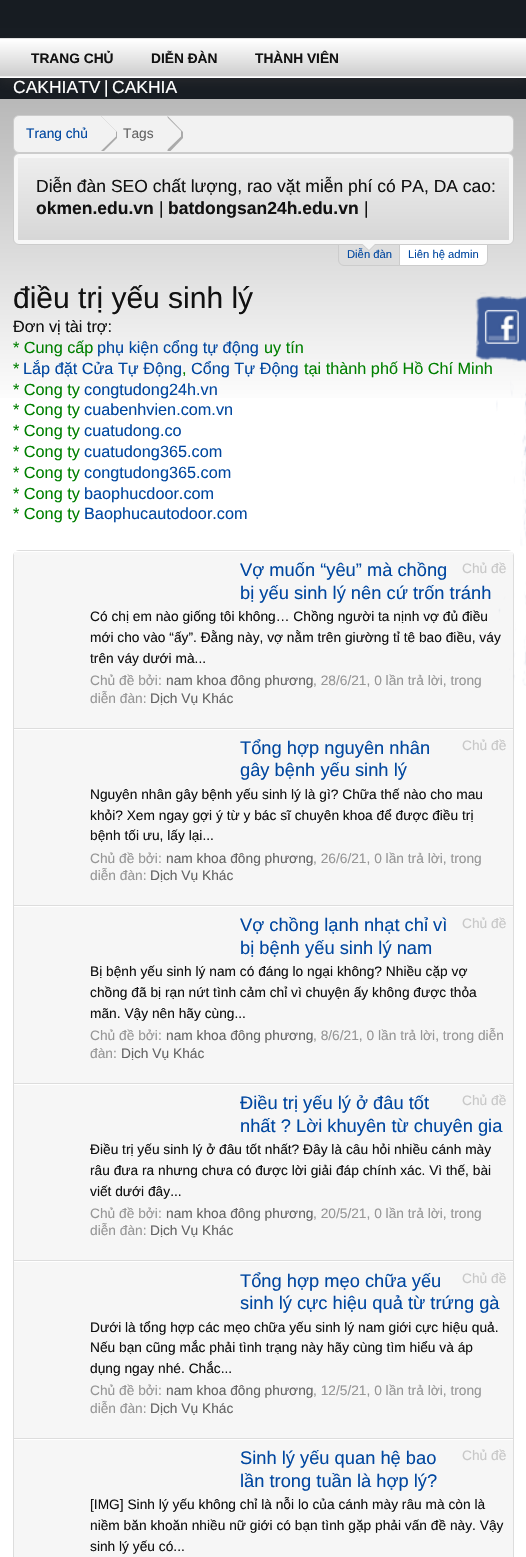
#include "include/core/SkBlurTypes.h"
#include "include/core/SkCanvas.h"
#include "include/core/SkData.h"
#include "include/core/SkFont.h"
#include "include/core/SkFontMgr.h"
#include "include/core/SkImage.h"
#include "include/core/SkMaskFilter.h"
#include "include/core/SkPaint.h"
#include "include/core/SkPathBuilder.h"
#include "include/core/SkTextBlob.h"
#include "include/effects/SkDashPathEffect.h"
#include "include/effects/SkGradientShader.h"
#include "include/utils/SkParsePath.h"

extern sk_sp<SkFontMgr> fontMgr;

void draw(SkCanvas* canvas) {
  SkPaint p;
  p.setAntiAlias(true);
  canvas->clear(SK_ColorWHITE);
  p.setColor(SkColorSetRGB(23, 28, 34));
  canvas->drawRect(SkRect::MakeLTRB(0, 0, 526, 99), p);
  p.setColor(SkColorSetARGB(115, 50, 50, 50));
  p.setMaskFilter(SkMaskFilter::MakeBlur(kNormal_SkBlurStyle, 5));
  canvas->drawRect(SkRect::MakeLTRB(0, 43, 526, 83), p);
  p.setMaskFilter(nullptr);
  {
    const SkColor colors[] = {SK_ColorWHITE, SkColorSetRGB(205, 205, 205)};
    const float stops[] = {0.02f, 1};
    const SkPoint ends[] = {{263, 39}, {263, 76}};
    p.setShader(SkGradientShader::MakeLinear(ends, colors, stops, 2, SkTileMode::kClamp));
    p.setAlpha(255);
  }
  canvas->drawRect(SkRect::MakeLTRB(0, 39, 526, 76), p);
  {
    const SkColor colors[] = {SK_ColorWHITE, SkColorSetRGB(205, 205, 205)};
    const float stops[] = {0.02f, 1};
    const SkPoint ends[] = {{263, 76}, {263, 114}};
    p.setShader(SkGradientShader::MakeLinear(ends, colors, stops, 2, SkTileMode::kClamp));
    p.setAlpha(255);
  }
  canvas->drawRect(SkRect::MakeLTRB(0, 77, 526, 78), p);
  p.setShader(nullptr);
  p.setColor(SkColorSetRGB(225, 225, 225));
  canvas->drawRect(SkRect::MakeLTRB(0, 38, 526, 39), p);
  p.setColor(SkColorSetRGB(238, 238, 238));
  canvas->drawRect(SkRect::MakeLTRB(0, 76, 526, 77), p);
  {
    const SkColor colors[] = {SkColorSetRGB(179, 179, 179), SK_ColorWHITE, SK_ColorWHITE};
    const float stops[] = {0, 0.18f, 1};
    const SkPoint ends[] = {{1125, 75}, {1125, 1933}};
    p.setShader(SkGradientShader::MakeLinear(ends, colors, stops, 3, SkTileMode::kClamp));
    p.setAlpha(255);
  }
  canvas->drawRect(SkRect::MakeLTRB(0, 99, 526, 398), p);
  p.setShader(nullptr);
  p.setColor(SkColorSetRGB(242, 242, 242));
  canvas->drawRoundRect(SkRect::MakeLTRB(13.5f, 115.5f, 513.5f, 152.5f), 5.5f, 5.5f, p);
  p.setStyle(SkPaint::kStroke_Style);
  p.setStrokeWidth(1);
  p.setColor(SkColorSetRGB(204, 204, 204));
  canvas->drawRoundRect(SkRect::MakeLTRB(13.5f, 115.5f, 513.5f, 152.5f), 5.5f, 5.5f, p);
  p.setStyle(SkPaint::kFill_Style);
  p.setColor(SkColorSetRGB(170, 170, 170));
  canvas->drawPath(SkPathBuilder().moveTo(104, 151).lineTo(101, 151).lineTo(101, 116).lineTo(117, 132).lineTo(117, 138).close().detach(), p);
  p.setColor(SkColorSetRGB(242, 242, 242));
  canvas->drawPath(SkPathBuilder().moveTo(101, 151).lineTo(101, 116).lineTo(116, 131).lineTo(116, 136.5f).close().detach(), p);
  p.setColor(SkColorSetRGB(170, 170, 170));
  canvas->drawPath(SkPathBuilder().moveTo(170.5f, 151).lineTo(167.5f, 151).lineTo(167.5f, 116).lineTo(183, 132).lineTo(183, 138).close().detach(), p);
  p.setColor(SkColorSetRGB(242, 242, 242));
  canvas->drawPath(SkPathBuilder().moveTo(166, 151).lineTo(166, 116).lineTo(181, 131).lineTo(181, 136.5f).close().detach(), p);
  p.setColor(SkColorSetRGB(247, 247, 247));
  canvas->drawRoundRect(SkRect::MakeLTRB(13.5f, 153.5f, 513.5f, 244.5f), 5.5f, 5.5f, p);
  p.setStyle(SkPaint::kStroke_Style);
  p.setColor(SkColorSetRGB(204, 204, 204));
  canvas->drawRoundRect(SkRect::MakeLTRB(13.5f, 153.5f, 513.5f, 244.5f), 5.5f, 5.5f, p);
  p.setStyle(SkPaint::kFill_Style);
  {
    const SkColor colors[] = {SkColorSetRGB(238, 238, 238), SkColorSetRGB(204, 204, 204)};
    const float stops[] = {0, 1};
    const SkPoint ends[] = {{282, 157}, {282, 278}};
    p.setShader(SkGradientShader::MakeLinear(ends, colors, stops, 2, SkTileMode::kClamp));
    p.setAlpha(255);
  }
  canvas->drawRect(SkRect::MakeLTRB(18, 158, 509, 240), p);
  p.setShader(nullptr);
  p.setColor(SkColorSetRGB(221, 221, 221));
  canvas->drawPath(SkPathBuilder().moveTo(338.5f, 244.5f).lineTo(399.5f, 244.5f).lineTo(399.5f, 265.5f).lineTo(344, 265.5f).cubicTo(341, 265.5f, 338.5f, 263, 338.5f, 260).close().detach(), p);
  p.setStyle(SkPaint::kStroke_Style);
  p.setColor(SkColorSetRGB(204, 204, 204));
  canvas->drawPath(SkPathBuilder().moveTo(338.5f, 244.5f).lineTo(399.5f, 244.5f).lineTo(399.5f, 265.5f).lineTo(344, 265.5f).cubicTo(341, 265.5f, 338.5f, 263, 338.5f, 260).close().detach(), p);
  p.setStyle(SkPaint::kFill_Style);
  p.setColor(SK_ColorWHITE);
  canvas->drawPath(SkPathBuilder().moveTo(399.5f, 244.5f).lineTo(487.5f, 244.5f).lineTo(487.5f, 260).cubicTo(487.5f, 263, 485, 265.5f, 482, 265.5f).lineTo(399.5f, 265.5f).close().detach(), p);
  p.setStyle(SkPaint::kStroke_Style);
  p.setColor(SkColorSetRGB(204, 204, 204));
  canvas->drawPath(SkPathBuilder().moveTo(399.5f, 244.5f).lineTo(487.5f, 244.5f).lineTo(487.5f, 260).cubicTo(487.5f, 263, 485, 265.5f, 482, 265.5f).lineTo(399.5f, 265.5f).close().detach(), p);
  p.setStyle(SkPaint::kFill_Style);
  p.setColor(SkColorSetRGB(246, 246, 246));
  canvas->drawPath(SkPathBuilder().moveTo(19, 550.5f).lineTo(508, 550.5f).cubicTo(511, 550.5f, 513.5f, 553, 513.5f, 556).lineTo(513.5f, 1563.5f).lineTo(13.5f, 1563.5f).lineTo(13.5f, 556).cubicTo(13.5f, 553, 16, 550.5f, 19, 550.5f).close().detach(), p);
  p.setStyle(SkPaint::kStroke_Style);
  p.setColor(SkColorSetRGB(221, 221, 221));
  canvas->drawPath(SkPathBuilder().moveTo(19, 550.5f).lineTo(508, 550.5f).cubicTo(511, 550.5f, 513.5f, 553, 513.5f, 556).lineTo(513.5f, 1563.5f).lineTo(13.5f, 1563.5f).lineTo(13.5f, 556).cubicTo(13.5f, 553, 16, 550.5f, 19, 550.5f).close().detach(), p);
  p.setStyle(SkPaint::kFill_Style);
  p.setColor(SkColorSetRGB(247, 247, 247));
  canvas->drawRect(SkRect::MakeLTRB(14, 552, 513, 555), p);
  p.setColor(SK_ColorWHITE);
  canvas->drawRect(SkRect::MakeLTRB(14, 551, 513, 552), p);
  p.setColor(SkColorSetRGB(221, 221, 221));
  canvas->drawRect(SkRect::MakeLTRB(14, 728, 513, 729), p);
  p.setColor(SK_ColorWHITE);
  canvas->drawRect(SkRect::MakeLTRB(14, 729, 513, 730), p);
  p.setColor(SkColorSetRGB(221, 221, 221));
  canvas->drawRect(SkRect::MakeLTRB(14, 905, 513, 906), p);
  p.setColor(SK_ColorWHITE);
  canvas->drawRect(SkRect::MakeLTRB(14, 906, 513, 907), p);
  p.setColor(SkColorSetRGB(221, 221, 221));
  canvas->drawRect(SkRect::MakeLTRB(14, 1083, 513, 1084), p);
  p.setColor(SK_ColorWHITE);
  canvas->drawRect(SkRect::MakeLTRB(14, 1084, 513, 1085), p);
  p.setColor(SkColorSetRGB(221, 221, 221));
  canvas->drawRect(SkRect::MakeLTRB(14, 1260, 513, 1261), p);
  p.setColor(SK_ColorWHITE);
  canvas->drawRect(SkRect::MakeLTRB(14, 1261, 513, 1262), p);
  p.setColor(SkColorSetRGB(221, 221, 221));
  canvas->drawRect(SkRect::MakeLTRB(14, 1438, 513, 1439), p);
  p.setColor(SK_ColorWHITE);
  canvas->drawRect(SkRect::MakeLTRB(14, 1439, 513, 1440), p);
  SkFont font1(fontMgr->matchFamilyStyle("Liberation Sans", SkFontStyle::Bold()), 13.75f);
  font1.setSubpixel(true);
  p.setColor(SkColorSetRGB(17, 17, 17));
  canvas->drawString("TRANG CHỦ", 31, 63, font1, p);
  canvas->drawString("DIỄN ĐÀN", 151, 63, font1, p);
  canvas->drawString("THÀNH VIÊN", 255, 63, font1, p);
  SkFont font2(fontMgr->matchFamilyStyle("Liberation Sans", SkFontStyle::Normal()), 17.5f);
  font2.setSubpixel(true);
  p.setColor(SK_ColorWHITE);
  canvas->drawString("CAKHIATV", 13, 93, font2, p);
  canvas->drawString("|", 104, 93, font2, p);
  canvas->drawString("CAKHIA", 112, 93, font2, p);
  SkFont font3(fontMgr->matchFamilyStyle("Liberation Sans", SkFontStyle::Normal()), 13.75f);
  font3.setSubpixel(true);
  p.setColor(SkColorSetRGB(0, 71, 160));
  canvas->drawString("Trang chủ", 26, 138, font3, p);
  p.setColor(SkColorSetRGB(100, 100, 100));
  canvas->drawString("Tags", 123, 138, font3, p);
  p.setColor(SkColorSetRGB(17, 17, 17));
  canvas->drawString("Diễn đàn SEO chất lượng, rao vặt miễn phí có PA, DA cao:", 36, 192, font2, p);
  SkFont font4(fontMgr->matchFamilyStyle("Liberation Sans", SkFontStyle::Bold()), 17.5f);
  font4.setSubpixel(true);
  canvas->drawString("okmen.edu.vn", 36, 214, font4, p);
  canvas->drawString("|", 159, 214, font2, p);
  canvas->drawString("batdongsan24h.edu.vn", 168, 214, font4, p);
  canvas->drawString("|", 364, 214, font2, p);
  SkFont font5(fontMgr->matchFamilyStyle("Liberation Sans", SkFontStyle::Normal()), 11.25f);
  font5.setSubpixel(true);
  p.setColor(SkColorSetRGB(0, 71, 160));
  canvas->drawString("Diễn đàn", 347, 258, font5, p);
  p.setColor(SkColorSetRGB(204, 204, 204));
  canvas->drawPath(SkPathBuilder().moveTo(362.5f, 245).lineTo(375, 245).lineTo(369, 251).close().detach(), p);
  p.setColor(SkColorSetRGB(247, 247, 247));
  canvas->drawPath(SkPathBuilder().moveTo(362.5f, 244).lineTo(375, 244).lineTo(369, 250).close().detach(), p);
  p.setColor(SkColorSetRGB(0, 71, 160));
  canvas->drawString("Liên hệ admin", 408, 258, font5, p);
  SkFont font6(fontMgr->matchFamilyStyle("Liberation Sans", SkFontStyle::Normal()), 30);
  font6.setSubpixel(true);
  p.setColor(SkColorSetRGB(17, 17, 17));
  canvas->drawString("điều trị yếu sinh lý", 13, 308, font6, p);
  SkFont font7(fontMgr->matchFamilyStyle("Liberation Sans", SkFontStyle::Normal()), 16.25f);
  font7.setSubpixel(true);
  canvas->drawString("Đơn vị tài trợ:", 13, 332, font7, p);
  p.setColor(SkColorSetRGB(0, 128, 0));
  canvas->drawString("* Cung cấp", 13, 353, font7, p);
  p.setColor(SkColorSetRGB(0, 71, 160));
  canvas->drawString("phụ kiện cổng tự động", 97, 353, font7, p);
  p.setColor(SkColorSetRGB(0, 128, 0));
  canvas->drawString("uy tín", 264, 353, font7, p);
  canvas->drawString("*", 13, 374, font7, p);
  p.setColor(SkColorSetRGB(0, 71, 160));
  canvas->drawString("Lắp đặt Cửa Tự Động", 23, 374, font7, p);
  canvas->drawString("Cổng Tự Động", 191, 374, font7, p);
  p.setColor(SkColorSetRGB(0, 128, 0));
  canvas->drawString("tại thành phố Hồ Chí Minh", 304, 374, font7, p);
  canvas->drawString(",", 182, 374, font7, p);
  canvas->drawString("* Cong ty", 13, 395, font7, p);
  p.setColor(SkColorSetRGB(0, 71, 160));
  canvas->drawString("congtudong24h.vn", 84, 395, font7, p);
  p.setColor(SkColorSetRGB(0, 128, 0));
  canvas->drawString("* Cong ty", 13, 415, font7, p);
  p.setColor(SkColorSetRGB(0, 71, 160));
  canvas->drawString("cuabenhvien.com.vn", 84, 415, font7, p);
  p.setColor(SkColorSetRGB(0, 128, 0));
  canvas->drawString("* Cong ty", 13, 436, font7, p);
  p.setColor(SkColorSetRGB(0, 71, 160));
  canvas->drawString("cuatudong.co", 84, 436, font7, p);
  p.setColor(SkColorSetRGB(0, 128, 0));
  canvas->drawString("* Cong ty", 13, 457, font7, p);
  p.setColor(SkColorSetRGB(0, 71, 160));
  canvas->drawString("cuatudong365.com", 84, 457, font7, p);
  p.setColor(SkColorSetRGB(0, 128, 0));
  canvas->drawString("* Cong ty", 13, 478, font7, p);
  p.setColor(SkColorSetRGB(0, 71, 160));
  canvas->drawString("congtudong365.com", 84, 478, font7, p);
  p.setColor(SkColorSetRGB(0, 128, 0));
  canvas->drawString("* Cong ty", 13, 499, font7, p);
  p.setColor(SkColorSetRGB(0, 71, 160));
  canvas->drawString("baophucdoor.com", 84, 499, font7, p);
  p.setColor(SkColorSetRGB(0, 128, 0));
  canvas->drawString("* Cong ty", 13, 519, font7, p);
  p.setColor(SkColorSetRGB(0, 71, 160));
  canvas->drawString("Baophucautodoor.com", 84, 519, font7, p);
  SkFont font8(fontMgr->matchFamilyStyle("Liberation Sans", SkFontStyle::Normal()), 18.3f);
  font8.setSubpixel(true);
  canvas->drawString("Vợ muốn “yêu” mà chồng", 240, 576, font8, p);
  canvas->drawString("bị yếu sinh lý nên cứ trốn tránh", 240, 599, font8, p);
  p.setColor(SkColorSetRGB(200, 200, 200));
  canvas->drawString("Chủ đề", 462, 573, font3, p);
  p.setColor(SkColorSetRGB(17, 17, 17));
  canvas->drawString("Có chị em nào giống tôi không… Chồng người ta nịnh vợ đủ điều", 90, 621, font3, p);
  canvas->drawString("mới cho vào “ấy”. Đằng này, vợ nằm trên giường tỉ tê bao điều, váy", 90, 642, font3, p);
  canvas->drawString("trên váy dưới mà...", 90, 663, font3, p);
  p.setColor(SkColorSetRGB(150, 150, 150));
  canvas->drawString("Chủ đề bởi:", 90, 685, font3, p);
  p.setColor(SkColorSetRGB(100, 100, 100));
  canvas->drawString("nam khoa đông phương", 166, 685, font3, p);
  p.setColor(SkColorSetRGB(150, 150, 150));
  canvas->drawString(", 28/6/21, 0 lần trả lời, trong", 313, 685, font3, p);
  canvas->drawString("diễn đàn:", 90, 703, font3, p);
  p.setColor(SkColorSetRGB(100, 100, 100));
  canvas->drawString("Dịch Vụ Khác", 150, 703, font3, p);
  p.setColor(SkColorSetRGB(0, 71, 160));
  canvas->drawString("Tổng hợp nguyên nhân", 240, 754, font8, p);
  canvas->drawString("gây bệnh yếu sinh lý", 240, 776, font8, p);
  p.setColor(SkColorSetRGB(200, 200, 200));
  canvas->drawString("Chủ đề", 462, 750, font3, p);
  p.setColor(SkColorSetRGB(17, 17, 17));
  canvas->drawString("Nguyên nhân gây bệnh yếu sinh lý là gì? Chữa thế nào cho mau", 90, 799, font3, p);
  canvas->drawString("khỏi? Xem ngay gợi ý từ y bác sĩ chuyên khoa để được điều trị", 90, 820, font3, p);
  canvas->drawString("bệnh tối ưu, lấy lại...", 90, 840, font3, p);
  p.setColor(SkColorSetRGB(150, 150, 150));
  canvas->drawString("Chủ đề bởi:", 90, 863, font3, p);
  p.setColor(SkColorSetRGB(100, 100, 100));
  canvas->drawString("nam khoa đông phương", 166, 863, font3, p);
  p.setColor(SkColorSetRGB(150, 150, 150));
  canvas->drawString(", 26/6/21, 0 lần trả lời, trong", 313, 863, font3, p);
  canvas->drawString("diễn đàn:", 90, 880, font3, p);
  p.setColor(SkColorSetRGB(100, 100, 100));
  canvas->drawString("Dịch Vụ Khác", 150, 880, font3, p);
  p.setColor(SkColorSetRGB(0, 71, 160));
  canvas->drawString("Vợ chồng lạnh nhạt chỉ vì", 240, 931, font8, p);
  canvas->drawString("bị bệnh yếu sinh lý nam", 240, 954, font8, p);
  p.setColor(SkColorSetRGB(200, 200, 200));
  canvas->drawString("Chủ đề", 462, 928, font3, p);
  p.setColor(SkColorSetRGB(17, 17, 17));
  canvas->drawString("Bị bệnh yếu sinh lý nam có đáng lo ngại không? Nhiều cặp vợ", 90, 976, font3, p);
  canvas->drawString("chồng đã bị rạn nứt tình cảm chỉ vì chuyện ấy không được thỏa", 90, 997, font3, p);
  canvas->drawString("mãn. Vậy nên hãy cùng...", 90, 1018, font3, p);
  p.setColor(SkColorSetRGB(150, 150, 150));
  canvas->drawString("Chủ đề bởi:", 90, 1040, font3, p);
  p.setColor(SkColorSetRGB(100, 100, 100));
  canvas->drawString("nam khoa đông phương", 166, 1040, font3, p);
  p.setColor(SkColorSetRGB(150, 150, 150));
  canvas->drawString(", 8/6/21, 0 lần trả lời, trong diễn", 313, 1040, font3, p);
  canvas->drawString("đàn:", 90, 1058, font3, p);
  p.setColor(SkColorSetRGB(100, 100, 100));
  canvas->drawString("Dịch Vụ Khác", 121, 1058, font3, p);
  p.setColor(SkColorSetRGB(0, 71, 160));
  canvas->drawString("Điều trị yếu lý ở đâu tốt", 240, 1109, font8, p);
  canvas->drawString("nhất ? Lời khuyên từ chuyên gia", 240, 1132, font8, p);
  p.setColor(SkColorSetRGB(200, 200, 200));
  canvas->drawString("Chủ đề", 462, 1105, font3, p);
  p.setColor(SkColorSetRGB(17, 17, 17));
  canvas->drawString("Điều trị yếu sinh lý ở đâu tốt nhất? Đây là câu hỏi nhiều cánh mày", 90, 1154, font3, p);
  canvas->drawString("râu đưa ra nhưng chưa có được lời giải đáp chính xác. Vì thế, bài", 90, 1175, font3, p);
  canvas->drawString("viết dưới đây...", 90, 1196, font3, p);
  p.setColor(SkColorSetRGB(150, 150, 150));
  canvas->drawString("Chủ đề bởi:", 90, 1218, font3, p);
  p.setColor(SkColorSetRGB(100, 100, 100));
  canvas->drawString("nam khoa đông phương", 166, 1218, font3, p);
  p.setColor(SkColorSetRGB(150, 150, 150));
  canvas->drawString(", 20/5/21, 0 lần trả lời, trong", 313, 1218, font3, p);
  canvas->drawString("diễn đàn:", 90, 1235, font3, p);
  p.setColor(SkColorSetRGB(100, 100, 100));
  canvas->drawString("Dịch Vụ Khác", 150, 1235, font3, p);
  p.setColor(SkColorSetRGB(0, 71, 160));
  canvas->drawString("Tổng hợp mẹo chữa yếu", 240, 1287, font8, p);
  canvas->drawString("sinh lý cực hiệu quả từ trứng gà", 240, 1309, font8, p);
  p.setColor(SkColorSetRGB(200, 200, 200));
  canvas->drawString("Chủ đề", 462, 1283, font3, p);
  p.setColor(SkColorSetRGB(17, 17, 17));
  canvas->drawString("Dưới là tổng hợp các mẹo chữa yếu sinh lý nam giới cực hiệu quả.", 90, 1332, font3, p);
  canvas->drawString("Nếu bạn cũng mắc phải tình trạng này hãy cùng tìm hiểu và áp", 90, 1352, font3, p);
  canvas->drawString("dụng ngay nhé. Chắc...", 90, 1373, font3, p);
  p.setColor(SkColorSetRGB(150, 150, 150));
  canvas->drawString("Chủ đề bởi:", 90, 1395, font3, p);
  p.setColor(SkColorSetRGB(100, 100, 100));
  canvas->drawString("nam khoa đông phương", 166, 1395, font3, p);
  p.setColor(SkColorSetRGB(150, 150, 150));
  canvas->drawString(", 12/5/21, 0 lần trả lời, trong", 313, 1395, font3, p);
  canvas->drawString("diễn đàn:", 90, 1413, font3, p);
  p.setColor(SkColorSetRGB(100, 100, 100));
  canvas->drawString("Dịch Vụ Khác", 150, 1413, font3, p);
  p.setColor(SkColorSetRGB(0, 71, 160));
  canvas->drawString("Sinh lý yếu quan hệ bao", 240, 1464, font8, p);
  canvas->drawString("lần trong tuần là hợp lý?", 240, 1487, font8, p);
  p.setColor(SkColorSetRGB(200, 200, 200));
  canvas->drawString("Chủ đề", 462, 1460, font3, p);
  p.setColor(SkColorSetRGB(17, 17, 17));
  canvas->drawString("[IMG] Sinh lý yếu không chỉ là nỗi lo của cánh mày râu mà còn là", 90, 1509, font3, p);
  canvas->drawString("niềm băn khoăn nhiều nữ giới có bạn tình gặp phải vấn đề này. Vậy", 90, 1530, font3, p);
  canvas->drawString("sinh lý yếu có...", 90, 1551, font3, p);
  canvas->drawImageRect(SkImages::DeferredFromEncodedData(SkData::MakeFromFileName("images/1.png")), SkRect::MakeLTRB(475, 292, 526, 686), SkSamplingOptions());
}
